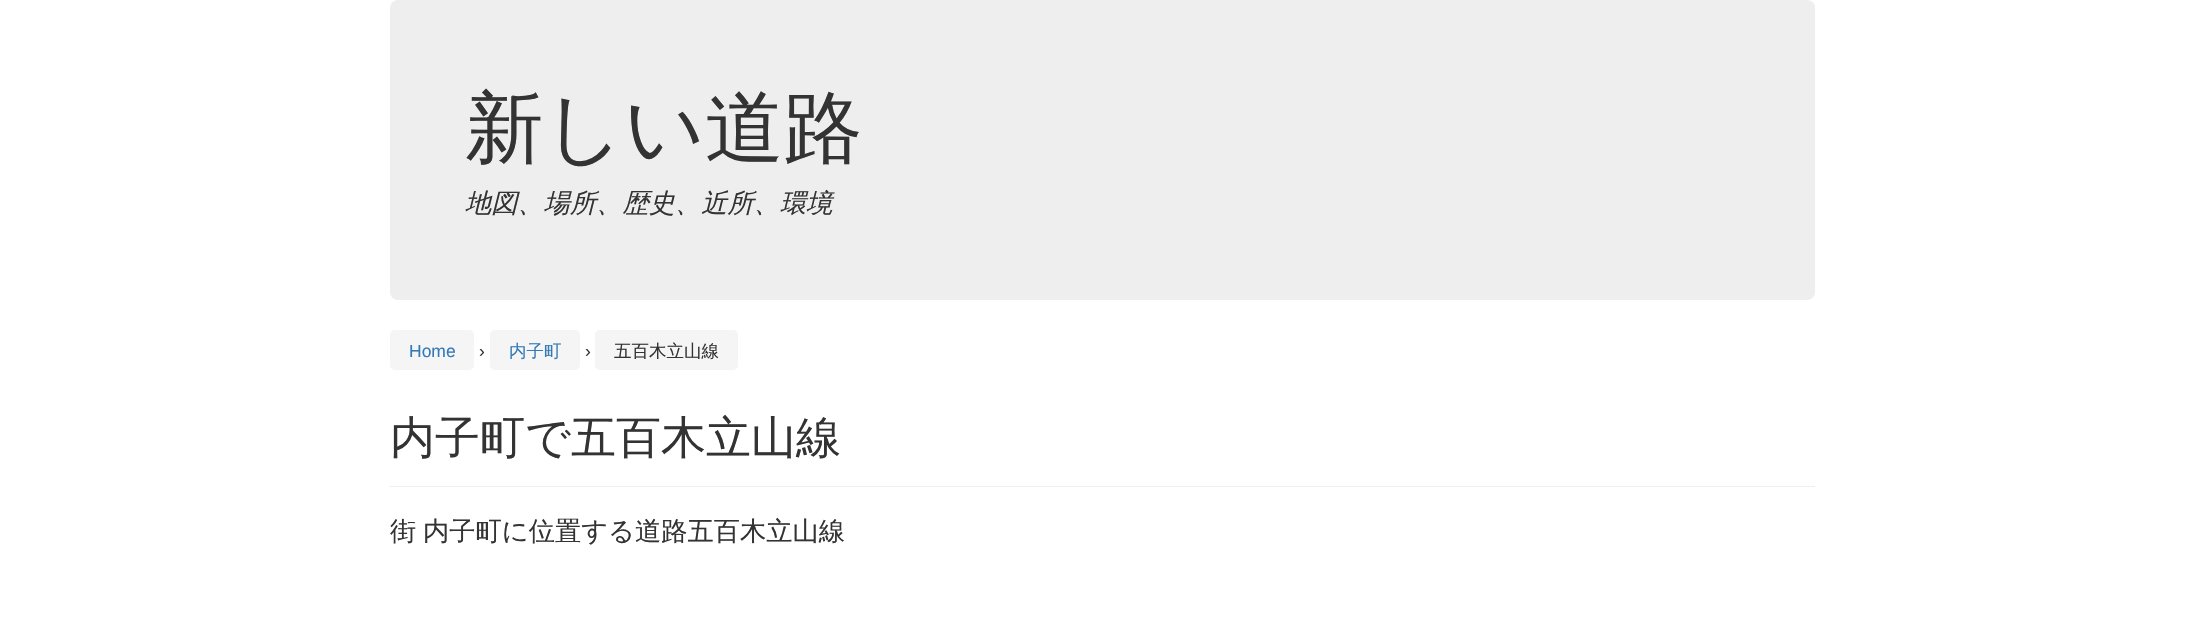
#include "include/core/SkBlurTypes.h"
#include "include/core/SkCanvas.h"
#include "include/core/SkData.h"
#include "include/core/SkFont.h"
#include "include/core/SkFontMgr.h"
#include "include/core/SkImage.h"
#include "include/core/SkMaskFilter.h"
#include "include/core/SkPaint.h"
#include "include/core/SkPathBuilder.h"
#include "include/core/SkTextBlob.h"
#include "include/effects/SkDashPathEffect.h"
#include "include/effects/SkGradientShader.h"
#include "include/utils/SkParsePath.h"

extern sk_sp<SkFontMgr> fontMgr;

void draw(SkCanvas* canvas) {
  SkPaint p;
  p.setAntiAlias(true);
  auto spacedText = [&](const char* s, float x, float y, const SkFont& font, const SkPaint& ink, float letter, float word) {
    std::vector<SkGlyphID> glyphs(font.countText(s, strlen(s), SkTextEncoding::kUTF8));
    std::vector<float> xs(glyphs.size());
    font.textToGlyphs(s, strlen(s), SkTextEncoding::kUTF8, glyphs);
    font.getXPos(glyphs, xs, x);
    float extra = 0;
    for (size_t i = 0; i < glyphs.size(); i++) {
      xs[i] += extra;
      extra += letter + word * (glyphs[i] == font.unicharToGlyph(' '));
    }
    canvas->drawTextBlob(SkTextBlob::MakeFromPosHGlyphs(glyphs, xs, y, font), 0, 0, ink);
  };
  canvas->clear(SK_ColorWHITE);
  p.setColor(SkColorSetRGB(238, 238, 238));
  canvas->drawRoundRect(SkRect::MakeLTRB(390, 0, 1815, 300), 8, 8, p);
  p.setColor(SkColorSetRGB(245, 245, 245));
  canvas->drawRoundRect(SkRect::MakeLTRB(390, 330, 474, 370), 5, 5, p);
  canvas->drawRoundRect(SkRect::MakeLTRB(490, 330, 580, 370), 5, 5, p);
  canvas->drawRoundRect(SkRect::MakeLTRB(595, 330, 738, 370), 5, 5, p);
  p.setColor(SkColorSetRGB(238, 238, 238));
  canvas->drawRect(SkRect::MakeLTRB(390, 486, 1815, 487), p);
  SkFont font1(fontMgr->matchFamilyStyle("WenQuanYi Zen Hei", SkFontStyle(500, SkFontStyle::kNormal_Width, SkFontStyle::kUpright_Slant)), 78.75f);
  font1.setSubpixel(true);
  p.setColor(SkColorSetRGB(51, 51, 51));
  canvas->drawString("新しい道路", 465, 155, font1, p);
  SkFont font2(fontMgr->matchFamilyStyle("WenQuanYi Zen Hei", SkFontStyle(500, SkFontStyle::kNormal_Width, SkFontStyle::kItalic_Slant)), 26.25f);
  font2.setSubpixel(true);
  canvas->drawString("地図、場所、歴史、近所、環境", 465, 212, font2, p);
  SkFont font3(fontMgr->matchFamilyStyle("Liberation Sans", SkFontStyle::Normal()), 17.5f);
  font3.setSubpixel(true);
  p.setColor(SkColorSetRGB(51, 122, 183));
  canvas->drawString("Home", 409, 357, font3, p);
  p.setColor(SkColorSetRGB(51, 51, 51));
  canvas->drawString("›", 479, 357, font3, p);
  SkFont font4(fontMgr->matchFamilyStyle("WenQuanYi Zen Hei", SkFontStyle(500, SkFontStyle::kNormal_Width, SkFontStyle::kUpright_Slant)), 17.5f);
  font4.setSubpixel(true);
  p.setColor(SkColorSetRGB(51, 122, 183));
  canvas->drawString("内子町", 509, 357, font4, p);
  p.setColor(SkColorSetRGB(51, 51, 51));
  canvas->drawString("›", 585, 357, font3, p);
  canvas->drawString("五百木立山線", 614, 357, font4, p);
  SkFont font5(fontMgr->matchFamilyStyle("WenQuanYi Zen Hei", SkFontStyle(500, SkFontStyle::kNormal_Width, SkFontStyle::kUpright_Slant)), 45);
  font5.setSubpixel(true);
  canvas->drawString("内子町で五百木立山線", 390, 453, font5, p);
  SkFont font6(fontMgr->matchFamilyStyle("WenQuanYi Zen Hei", SkFontStyle(500, SkFontStyle::kNormal_Width, SkFontStyle::kUpright_Slant)), 26.25f);
  font6.setSubpixel(true);
  spacedText("街 内子町に位置する道路五百木立山線", 390, 540, font6, p, 0, -1);
}
